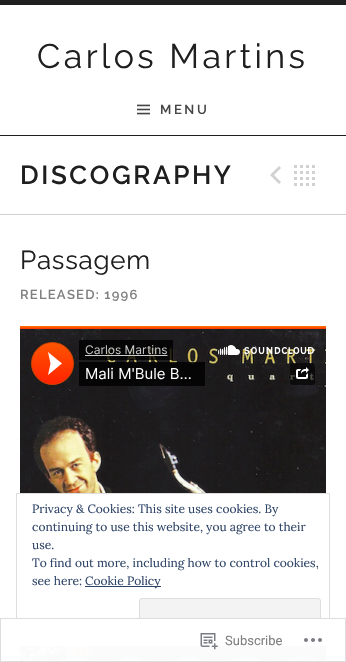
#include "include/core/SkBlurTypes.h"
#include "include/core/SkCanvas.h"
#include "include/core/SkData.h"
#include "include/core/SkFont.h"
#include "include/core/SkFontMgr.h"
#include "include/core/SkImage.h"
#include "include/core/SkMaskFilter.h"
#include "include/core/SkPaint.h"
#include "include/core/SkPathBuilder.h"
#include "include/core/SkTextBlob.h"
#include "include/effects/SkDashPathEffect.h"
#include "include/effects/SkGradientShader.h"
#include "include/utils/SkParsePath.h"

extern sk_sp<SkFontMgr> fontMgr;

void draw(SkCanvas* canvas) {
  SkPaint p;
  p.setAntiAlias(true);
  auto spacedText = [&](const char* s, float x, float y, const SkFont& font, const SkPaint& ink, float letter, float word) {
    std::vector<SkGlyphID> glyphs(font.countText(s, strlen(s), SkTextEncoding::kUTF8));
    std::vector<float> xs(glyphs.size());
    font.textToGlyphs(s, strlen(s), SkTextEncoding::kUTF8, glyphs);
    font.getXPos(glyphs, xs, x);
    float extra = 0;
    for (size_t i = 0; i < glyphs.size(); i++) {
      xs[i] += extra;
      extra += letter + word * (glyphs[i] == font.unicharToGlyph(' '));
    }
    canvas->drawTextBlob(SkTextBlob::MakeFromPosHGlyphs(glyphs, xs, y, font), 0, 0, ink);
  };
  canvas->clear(SK_ColorWHITE);
  p.setColor(SkColorSetRGB(31, 31, 31));
  canvas->drawRect(SkRect::MakeLTRB(0, 0, 346, 5), p);
  canvas->drawRect(SkRect::MakeLTRB(0, 135, 346, 136), p);
  canvas->drawImageRect(SkImages::DeferredFromEncodedData(SkData::MakeFromFileName("images/1.png")), SkRect::MakeLTRB(137, 104, 150, 115), SkSamplingOptions());
  p.setColor(SkColorSetRGB(209, 209, 209));
  canvas->drawRect(SkRect::MakeLTRB(0, 214, 346, 215), p);
  canvas->drawPath(SkPathBuilder().moveTo(281, 168).lineTo(274, 175).lineTo(281, 182).lineTo(279, 184).lineTo(270, 175).lineTo(279, 166).close().detach(), p);
  canvas->drawImageRect(SkImages::DeferredFromEncodedData(SkData::MakeFromFileName("images/2.png")), SkRect::MakeLTRB(294, 165, 315, 186), SkSamplingOptions());
  canvas->drawImageRect(SkImages::DeferredFromEncodedData(SkData::MakeFromFileName("images/3.png")), SkRect::MakeLTRB(20, 326, 326, 662), SkSamplingOptions());
  p.setColor(SK_ColorWHITE);
  canvas->drawRect(SkRect::MakeLTRB(20, 494, 326, 645), p);
  p.setStyle(SkPaint::kStroke_Style);
  p.setStrokeWidth(1);
  p.setColor(SkColorSetRGB(222, 222, 222));
  canvas->drawRect(SkRect::MakeLTRB(16.5f, 493.5f, 329.5f, 645.5f), p);
  p.setStyle(SkPaint::kFill_Style);
  p.setColor(SkColorSetRGB(46, 68, 103));
  canvas->drawRect(SkRect::MakeLTRB(85, 586, 161, 587), p);
  p.setColor(SkColorSetRGB(243, 243, 243));
  canvas->drawRoundRect(SkRect::MakeLTRB(139.5f, 598.5f, 320.5f, 636.5f), 2.5f, 2.5f, p);
  p.setStyle(SkPaint::kStroke_Style);
  p.setColor(SkColorSetRGB(222, 222, 222));
  canvas->drawRoundRect(SkRect::MakeLTRB(139.5f, 598.5f, 320.5f, 636.5f), 2.5f, 2.5f, p);
  p.setStyle(SkPaint::kFill_Style);
  p.setColor(SkColorSetARGB(250, 255, 255, 255));
  canvas->drawRect(SkRect::MakeLTRB(16, 618, 330, 662), p);
  p.setStyle(SkPaint::kStroke_Style);
  p.setColor(SkColorSetARGB(250, 220, 220, 222));
  canvas->drawRect(SkRect::MakeLTRB(0.5f, 618.5f, 345.5f, 661.5f), p);
  canvas->drawImageRect(SkImages::DeferredFromEncodedData(SkData::MakeFromFileName("images/4.png")), SkRect::MakeLTRB(200, 633, 218, 650), SkSamplingOptions());
  canvas->drawImageRect(SkImages::DeferredFromEncodedData(SkData::MakeFromFileName("images/5.png")), SkRect::MakeLTRB(304, 638, 322, 642), SkSamplingOptions());
  SkFont font1(fontMgr->matchFamilyStyle("Raleway", SkFontStyle::Normal()), 34);
  font1.setSubpixel(true);
  p.setStyle(SkPaint::kFill_Style);
  p.setColor(SkColorSetRGB(31, 31, 31));
  spacedText("Carlos Martins", 37, 68, font1, p, 3.4f, 0);
  SkFont font2(fontMgr->matchFamilyStyle("Raleway", SkFontStyle(600, SkFontStyle::kNormal_Width, SkFontStyle::kUpright_Slant)), 13);
  font2.setSubpixel(true);
  p.setColor(SkColorSetRGB(69, 69, 69));
  spacedText("MENU", 160, 114, font2, p, 2.6f, 0);
  SkFont font3(fontMgr->matchFamilyStyle("Raleway", SkFontStyle(600, SkFontStyle::kNormal_Width, SkFontStyle::kUpright_Slant)), 26);
  font3.setSubpixel(true);
  p.setColor(SkColorSetRGB(31, 31, 31));
  spacedText("DISCOGRAPHY", 20, 184, font3, p, 2.6f, 0);
  SkFont font4(fontMgr->matchFamilyStyle("Raleway", SkFontStyle::Normal()), 26);
  font4.setSubpixel(true);
  spacedText("Passagem", 20, 269, font4, p, 0.75f, 0);
  p.setColor(SkColorSetRGB(128, 128, 128));
  spacedText("RELEASED: 1996", 20, 299, font2, p, 1.25f, 0);
  SkFont font5(fontMgr->matchFamilyStyle("Lora", SkFontStyle::Normal()), 12);
  font5.setSubpixel(true);
  p.setColor(SkColorSetRGB(46, 68, 103));
  canvas->drawString("Privacy & Cookies: This site uses cookies. By", 32, 513, font5, p);
  canvas->drawString("continuing to use this website, you agree to their", 32, 531, font5, p);
  canvas->drawString("use.", 32, 549, font5, p);
  canvas->drawString("To find out more, including how to control cookies,", 32, 567, font5, p);
  canvas->drawString("see here:", 32, 585, font5, p);
  canvas->drawString("Cookie Policy", 85, 585, font5, p);
  SkFont font6(fontMgr->matchFamilyStyle("Roboto", SkFontStyle::Normal()), 13);
  font6.setSubpixel(true);
  p.setColor(SkColorSetRGB(128, 128, 128));
  canvas->drawString("Subscribe", 225, 645, font6, p);
}
